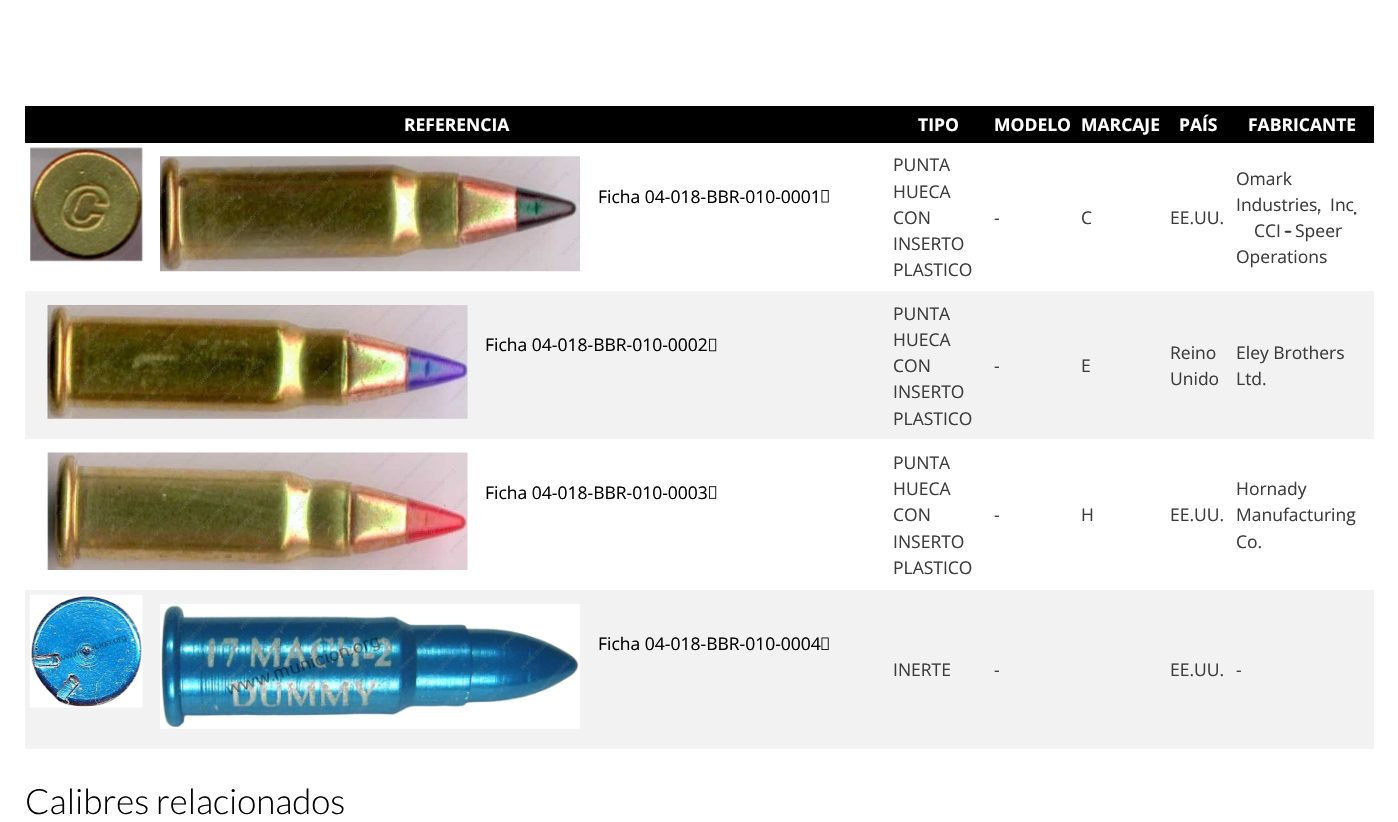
#include "include/core/SkBlurTypes.h"
#include "include/core/SkCanvas.h"
#include "include/core/SkData.h"
#include "include/core/SkFont.h"
#include "include/core/SkFontMgr.h"
#include "include/core/SkImage.h"
#include "include/core/SkMaskFilter.h"
#include "include/core/SkPaint.h"
#include "include/core/SkPathBuilder.h"
#include "include/core/SkTextBlob.h"
#include "include/effects/SkDashPathEffect.h"
#include "include/effects/SkGradientShader.h"
#include "include/utils/SkParsePath.h"

extern sk_sp<SkFontMgr> fontMgr;

void draw(SkCanvas* canvas) {
  SkPaint p;
  p.setAntiAlias(true);
  canvas->clear(SK_ColorWHITE);
  p.setColor(SK_ColorBLACK);
  canvas->drawRect(SkRect::MakeLTRB(25, 106, 1374, 143), p);
  canvas->drawImageRect(SkImages::DeferredFromEncodedData(SkData::MakeFromFileName("images/1.png")), SkRect::MakeLTRB(30, 147, 143, 262), SkSamplingOptions());
  canvas->drawImageRect(SkImages::DeferredFromEncodedData(SkData::MakeFromFileName("images/2.png")), SkRect::MakeLTRB(160, 156, 580, 272), SkSamplingOptions());
  canvas->drawImageRect(SkImages::DeferredFromEncodedData(SkData::MakeFromFileName("images/3.png")), SkRect::MakeLTRB(821, 190, 829, 203), SkSamplingOptions());
  p.setColor(SkColorSetRGB(242, 242, 242));
  canvas->drawRect(SkRect::MakeLTRB(25, 291, 1374, 439), p);
  canvas->drawImageRect(SkImages::DeferredFromEncodedData(SkData::MakeFromFileName("images/4.png")), SkRect::MakeLTRB(47, 305, 468, 419), SkSamplingOptions());
  canvas->drawImageRect(SkImages::DeferredFromEncodedData(SkData::MakeFromFileName("images/5.png")), SkRect::MakeLTRB(709, 338, 717, 352), SkSamplingOptions());
  canvas->drawImageRect(SkImages::DeferredFromEncodedData(SkData::MakeFromFileName("images/6.png")), SkRect::MakeLTRB(47, 452, 468, 570), SkSamplingOptions());
  canvas->drawImageRect(SkImages::DeferredFromEncodedData(SkData::MakeFromFileName("images/7.png")), SkRect::MakeLTRB(709, 486, 717, 499), SkSamplingOptions());
  canvas->drawRect(SkRect::MakeLTRB(25, 590, 1374, 749), p);
  canvas->drawImageRect(SkImages::DeferredFromEncodedData(SkData::MakeFromFileName("images/8.png")), SkRect::MakeLTRB(30, 595, 143, 708), SkSamplingOptions());
  canvas->drawImageRect(SkImages::DeferredFromEncodedData(SkData::MakeFromFileName("images/9.png")), SkRect::MakeLTRB(160, 604, 580, 729), SkSamplingOptions());
  canvas->drawImageRect(SkImages::DeferredFromEncodedData(SkData::MakeFromFileName("images/10.png")), SkRect::MakeLTRB(821, 637, 829, 650), SkSamplingOptions());
  SkFont font1(fontMgr->matchFamilyStyle("Open Sans", SkFontStyle::Bold()), 17.5f);
  font1.setSubpixel(true);
  p.setColor(SK_ColorWHITE);
  canvas->drawString("REFERENCIA", 404, 131, font1, p);
  canvas->drawString("TIPO", 918, 131, font1, p);
  canvas->drawString("MODELO", 994, 131, font1, p);
  canvas->drawString("MARCAJE", 1081, 131, font1, p);
  canvas->drawString("PAÍS", 1179, 131, font1, p);
  canvas->drawString("FABRICANTE", 1248, 131, font1, p);
  SkFont font2(fontMgr->matchFamilyStyle("Open Sans", SkFontStyle::Normal()), 17.5f);
  font2.setSubpixel(true);
  p.setColor(SK_ColorBLACK);
  canvas->drawString("Ficha 04-018-BBR-010-0001", 598, 203, font2, p);
  p.setColor(SkColorSetRGB(60, 60, 60));
  canvas->drawString("PUNTA", 893, 171, font2, p);
  canvas->drawString("HUECA", 893, 198, font2, p);
  canvas->drawString("CON", 893, 224, font2, p);
  canvas->drawString("INSERTO", 893, 250, font2, p);
  canvas->drawString("PLASTICO", 893, 276, font2, p);
  canvas->drawString("Omark", 1236, 185, font2, p);
  canvas->drawString("Industries", 1236, 211, font2, p);
  SkFont font3(fontMgr->matchFamilyStyle("Digital Numbers", SkFontStyle::Normal()), 17.5f);
  font3.setSubpixel(true);
  canvas->drawString(",", 1318, 211, font3, p);
  canvas->drawString("Inc", 1330, 211, font2, p);
  canvas->drawString(".", 1354, 211, font3, p);
  canvas->drawString("CCI", 1254, 237, font2, p);
  canvas->drawString("-", 1281, 237, font3, p);
  canvas->drawString("Speer", 1295, 237, font2, p);
  canvas->drawString("Operations", 1236, 263, font2, p);
  canvas->drawString("-", 994, 224, font2, p);
  canvas->drawString("C", 1081, 224, font2, p);
  canvas->drawString("EE.UU.", 1170, 224, font2, p);
  p.setColor(SK_ColorBLACK);
  canvas->drawString("Ficha 04-018-BBR-010-0002", 485, 351, font2, p);
  p.setColor(SkColorSetRGB(60, 60, 60));
  canvas->drawString("PUNTA", 893, 320, font2, p);
  canvas->drawString("HUECA", 893, 346, font2, p);
  canvas->drawString("CON", 893, 372, font2, p);
  canvas->drawString("INSERTO", 893, 398, font2, p);
  canvas->drawString("PLASTICO", 893, 425, font2, p);
  canvas->drawString("-", 994, 372, font2, p);
  canvas->drawString("E", 1081, 372, font2, p);
  canvas->drawString("Reino", 1170, 359, font2, p);
  canvas->drawString("Unido", 1170, 385, font2, p);
  canvas->drawString("Eley Brothers", 1236, 359, font2, p);
  canvas->drawString("Ltd.", 1236, 385, font2, p);
  p.setColor(SK_ColorBLACK);
  canvas->drawString("Ficha 04-018-BBR-010-0003", 485, 499, font2, p);
  p.setColor(SkColorSetRGB(60, 60, 60));
  canvas->drawString("PUNTA", 893, 469, font2, p);
  canvas->drawString("HUECA", 893, 495, font2, p);
  canvas->drawString("CON", 893, 521, font2, p);
  canvas->drawString("INSERTO", 893, 548, font2, p);
  canvas->drawString("PLASTICO", 893, 574, font2, p);
  canvas->drawString("Hornady", 1236, 495, font2, p);
  canvas->drawString("Manufacturing", 1236, 521, font2, p);
  canvas->drawString("Co.", 1236, 548, font2, p);
  canvas->drawString("-", 994, 521, font2, p);
  canvas->drawString("H", 1081, 521, font2, p);
  canvas->drawString("EE.UU.", 1170, 521, font2, p);
  p.setColor(SK_ColorBLACK);
  canvas->drawString("Ficha 04-018-BBR-010-0004", 598, 650, font2, p);
  p.setColor(SkColorSetRGB(60, 60, 60));
  canvas->drawString("INERTE", 893, 676, font2, p);
  canvas->drawString("-", 994, 676, font2, p);
  canvas->drawString("EE.UU.", 1170, 676, font2, p);
  canvas->drawString("-", 1236, 676, font2, p);
  SkFont font4(fontMgr->matchFamilyStyle("Lato", SkFontStyle(300, SkFontStyle::kNormal_Width, SkFontStyle::kUpright_Slant)), 35);
  font4.setSubpixel(true);
  p.setColor(SK_ColorBLACK);
  canvas->drawString("Calibres relacionados", 25, 814, font4, p);
}
